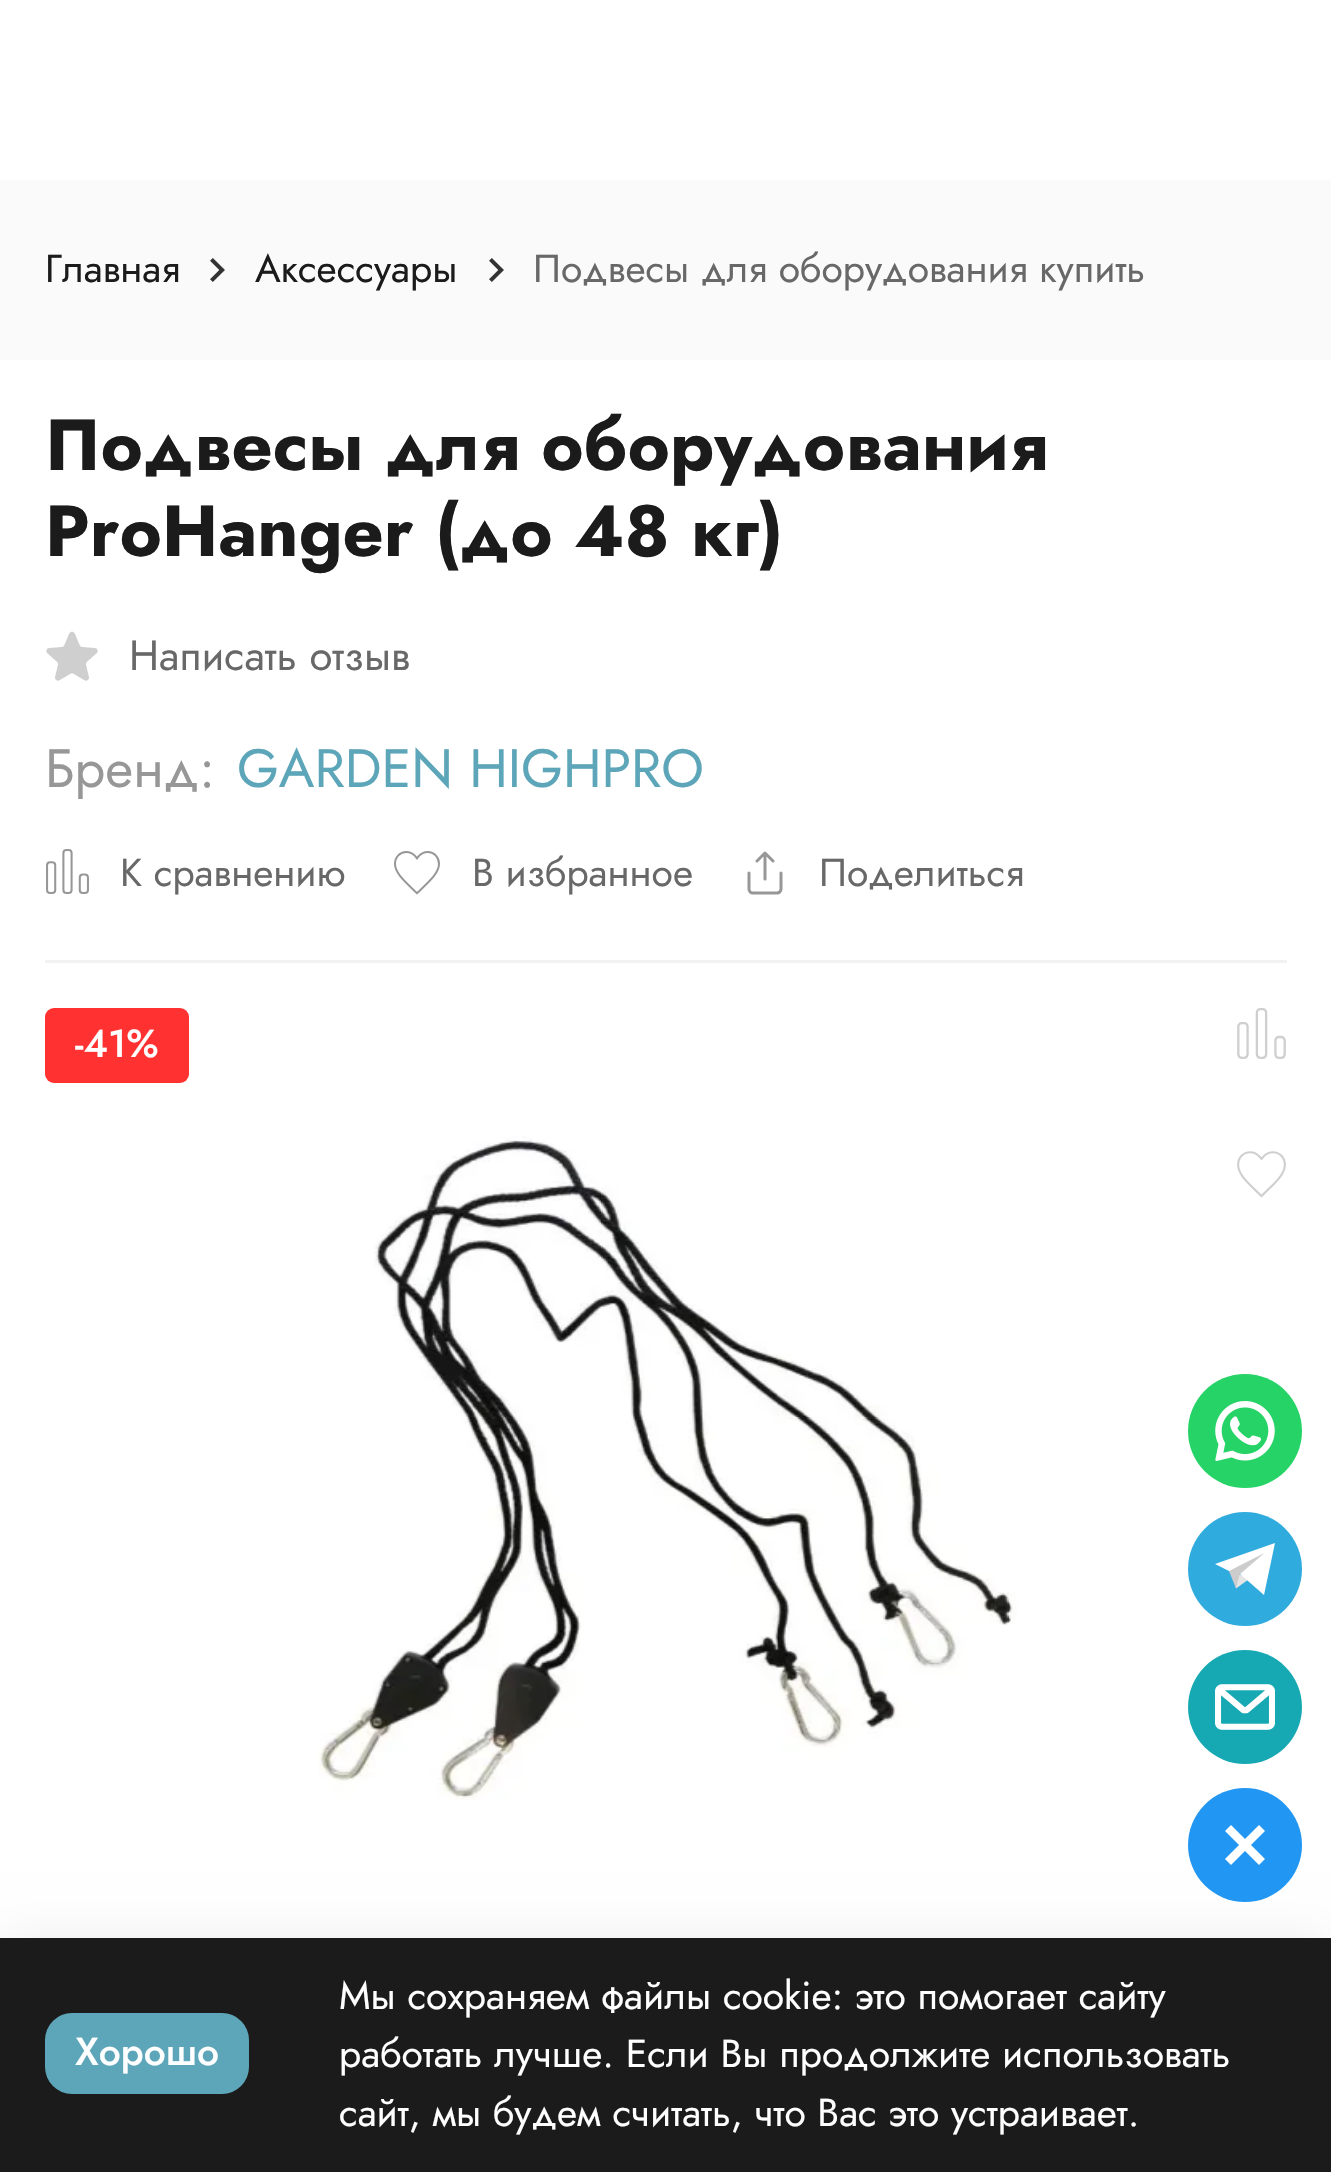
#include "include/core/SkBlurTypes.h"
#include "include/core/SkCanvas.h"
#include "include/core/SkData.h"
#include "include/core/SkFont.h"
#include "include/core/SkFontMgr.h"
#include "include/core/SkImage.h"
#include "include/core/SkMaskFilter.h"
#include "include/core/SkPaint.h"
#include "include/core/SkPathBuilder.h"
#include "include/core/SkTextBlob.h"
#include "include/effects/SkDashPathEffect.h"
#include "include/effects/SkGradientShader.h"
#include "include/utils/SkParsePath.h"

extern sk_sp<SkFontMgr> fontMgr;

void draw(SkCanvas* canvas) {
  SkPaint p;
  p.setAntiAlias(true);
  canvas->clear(SK_ColorWHITE);
  p.setColor(SkColorSetRGB(250, 250, 250));
  canvas->drawRect(SkRect::MakeLTRB(0, 180, 1331, 360), p);
  canvas->drawImageRect(SkImages::DeferredFromEncodedData(SkData::MakeFromFileName("images/1.png")), SkRect::MakeLTRB(210, 258, 225, 282), SkSamplingOptions());
  canvas->drawImageRect(SkImages::DeferredFromEncodedData(SkData::MakeFromFileName("images/1.png")), SkRect::MakeLTRB(489, 258, 504, 282), SkSamplingOptions());
  p.setColor(SkColorSetRGB(242, 242, 242));
  canvas->drawRect(SkRect::MakeLTRB(45, 960, 1287, 963), p);
  canvas->drawImageRect(SkImages::DeferredFromEncodedData(SkData::MakeFromFileName("images/2.png")), SkRect::MakeLTRB(46, 631, 98, 681), SkSamplingOptions());
  canvas->drawImageRect(SkImages::DeferredFromEncodedData(SkData::MakeFromFileName("images/3.png")), SkRect::MakeLTRB(46, 849, 89, 894), SkSamplingOptions());
  canvas->drawImageRect(SkImages::DeferredFromEncodedData(SkData::MakeFromFileName("images/4.png")), SkRect::MakeLTRB(394, 851, 440, 895), SkSamplingOptions());
  canvas->drawImageRect(SkImages::DeferredFromEncodedData(SkData::MakeFromFileName("images/5.png")), SkRect::MakeLTRB(747, 851, 783, 895), SkSamplingOptions());
  p.setColor(SkColorSetRGB(255, 49, 49));
  canvas->drawRoundRect(SkRect::MakeLTRB(45, 1008, 189, 1083), 9, 9, p);
  canvas->drawImageRect(SkImages::DeferredFromEncodedData(SkData::MakeFromFileName("images/6.png")), SkRect::MakeLTRB(318, 1136, 1017, 1800), SkSamplingOptions());
  canvas->drawImageRect(SkImages::DeferredFromEncodedData(SkData::MakeFromFileName("images/7.png")), SkRect::MakeLTRB(1237, 1008, 1286, 1059), SkSamplingOptions());
  canvas->drawImageRect(SkImages::DeferredFromEncodedData(SkData::MakeFromFileName("images/8.png")), SkRect::MakeLTRB(1237, 1151, 1286, 1198), SkSamplingOptions());
  p.setColor(SkColorSetRGB(37, 211, 102));
  canvas->drawCircle(1245, 1431, 57, p);
  canvas->drawImageRect(SkImages::DeferredFromEncodedData(SkData::MakeFromFileName("images/9.png")), SkRect::MakeLTRB(1215, 1401, 1275, 1461), SkSamplingOptions());
  p.setColor(SkColorSetRGB(48, 171, 222));
  canvas->drawCircle(1245, 1569, 57, p);
  p.setColor(SkColorSetRGB(229, 229, 229));
  canvas->drawPath(SkPathBuilder().moveTo(1239.5f, 1574.5f).lineTo(1235, 1579.5f).lineTo(1236, 1588.5f).lineTo(1250.5f, 1578).close().detach(), p);
  p.setColor(SK_ColorWHITE);
  canvas->drawPath(SkPathBuilder().moveTo(1215, 1564).lineTo(1229, 1571).lineTo(1240, 1574).lineTo(1264, 1595).lineTo(1275, 1543).close().detach(), p);
  p.setColor(SkColorSetRGB(204, 204, 204));
  canvas->drawPath(SkPathBuilder().moveTo(1229, 1571).lineTo(1236, 1588.5f).lineTo(1239.5f, 1574.5f).lineTo(1264.5f, 1553).close().detach(), p);
  p.setColor(SkColorSetRGB(22, 169, 179));
  canvas->drawCircle(1245, 1707, 57, p);
  canvas->drawImageRect(SkImages::DeferredFromEncodedData(SkData::MakeFromFileName("images/10.png")), SkRect::MakeLTRB(1215, 1684, 1275, 1730), SkSamplingOptions());
  p.setColor(SkColorSetARGB(18, 0, 0, 0));
  p.setMaskFilter(SkMaskFilter::MakeBlur(kNormal_SkBlurStyle, 22.5f));
  canvas->drawRect(SkRect::MakeLTRB(0, 1938, 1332, 2172), p);
  p.setMaskFilter(nullptr);
  p.setColor(SkColorSetRGB(33, 150, 243));
  canvas->drawCircle(1245, 1845, 57, p);
  p.setColor(SK_ColorWHITE);
  canvas->drawPath(SkPathBuilder().moveTo(1231, 1825).lineTo(1265, 1859).lineTo(1259, 1865).lineTo(1225, 1831).close().detach(), p);
  canvas->drawPath(SkPathBuilder().moveTo(1225, 1859).lineTo(1259, 1825).lineTo(1265, 1831).lineTo(1231, 1865).close().detach(), p);
  p.setColor(SkColorSetRGB(27, 27, 27));
  canvas->drawRect(SkRect::MakeLTRB(0, 1938, 1331, 2172), p);
  p.setColor(SkColorSetRGB(93, 166, 185));
  canvas->drawRoundRect(SkRect::MakeLTRB(45, 2013, 249, 2094), 27, 27, p);
  SkFont font1(fontMgr->matchFamilyStyle("Jost", SkFontStyle::Normal()), 39);
  font1.setSubpixel(true);
  p.setColor(SkColorSetRGB(27, 27, 27));
  canvas->drawString("Главная", 45, 282, font1, p);
  canvas->drawString("Аксессуары", 255, 282, font1, p);
  p.setColor(SkColorSetRGB(104, 104, 104));
  canvas->drawString("Подвесы для оборудования купить", 533, 282, font1, p);
  SkFont font2(fontMgr->matchFamilyStyle("Jost", SkFontStyle::Bold()), 72);
  font2.setSubpixel(true);
  p.setColor(SkColorSetRGB(27, 27, 27));
  canvas->drawString("Подвесы для оборудования", 45, 470, font2, p);
  canvas->drawString("ProHanger (до 48 кг)", 45, 556, font2, p);
  SkFont font3(fontMgr->matchFamilyStyle("Jost", SkFontStyle::Normal()), 42);
  font3.setSubpixel(true);
  p.setColor(SkColorSetRGB(104, 104, 104));
  canvas->drawString("Написать отзыв", 129, 670, font3, p);
  SkFont font4(fontMgr->matchFamilyStyle("Jost", SkFontStyle::Normal()), 54);
  font4.setSubpixel(true);
  p.setColor(SkColorSetRGB(151, 151, 151));
  canvas->drawString("Бренд:", 45, 787, font4, p);
  p.setColor(SkColorSetRGB(93, 166, 185));
  canvas->drawString("GARDEN HIGHPRO", 237, 787, font4, p);
  p.setColor(SkColorSetRGB(104, 104, 104));
  canvas->drawString("К сравнению", 120, 886, font1, p);
  canvas->drawString("В избранное", 472, 886, font1, p);
  canvas->drawString("Поделиться", 819, 886, font1, p);
  SkFont font5(fontMgr->matchFamilyStyle("Jost", SkFontStyle(500, SkFontStyle::kNormal_Width, SkFontStyle::kUpright_Slant)), 39);
  font5.setSubpixel(true);
  p.setColor(SK_ColorWHITE);
  canvas->drawString("-41%", 75, 1057, font5, p);
  canvas->drawString("Хорошо", 75, 2065, font5, p);
  canvas->drawString("Мы сохраняем файлы cookie: это помогает сайту", 339, 2009, font1, p);
  canvas->drawString("работать лучше. Если Вы продолжите использовать", 339, 2067, font1, p);
  canvas->drawString("сайт, мы будем считать, что Вас это устраивает.", 339, 2126, font1, p);
}
